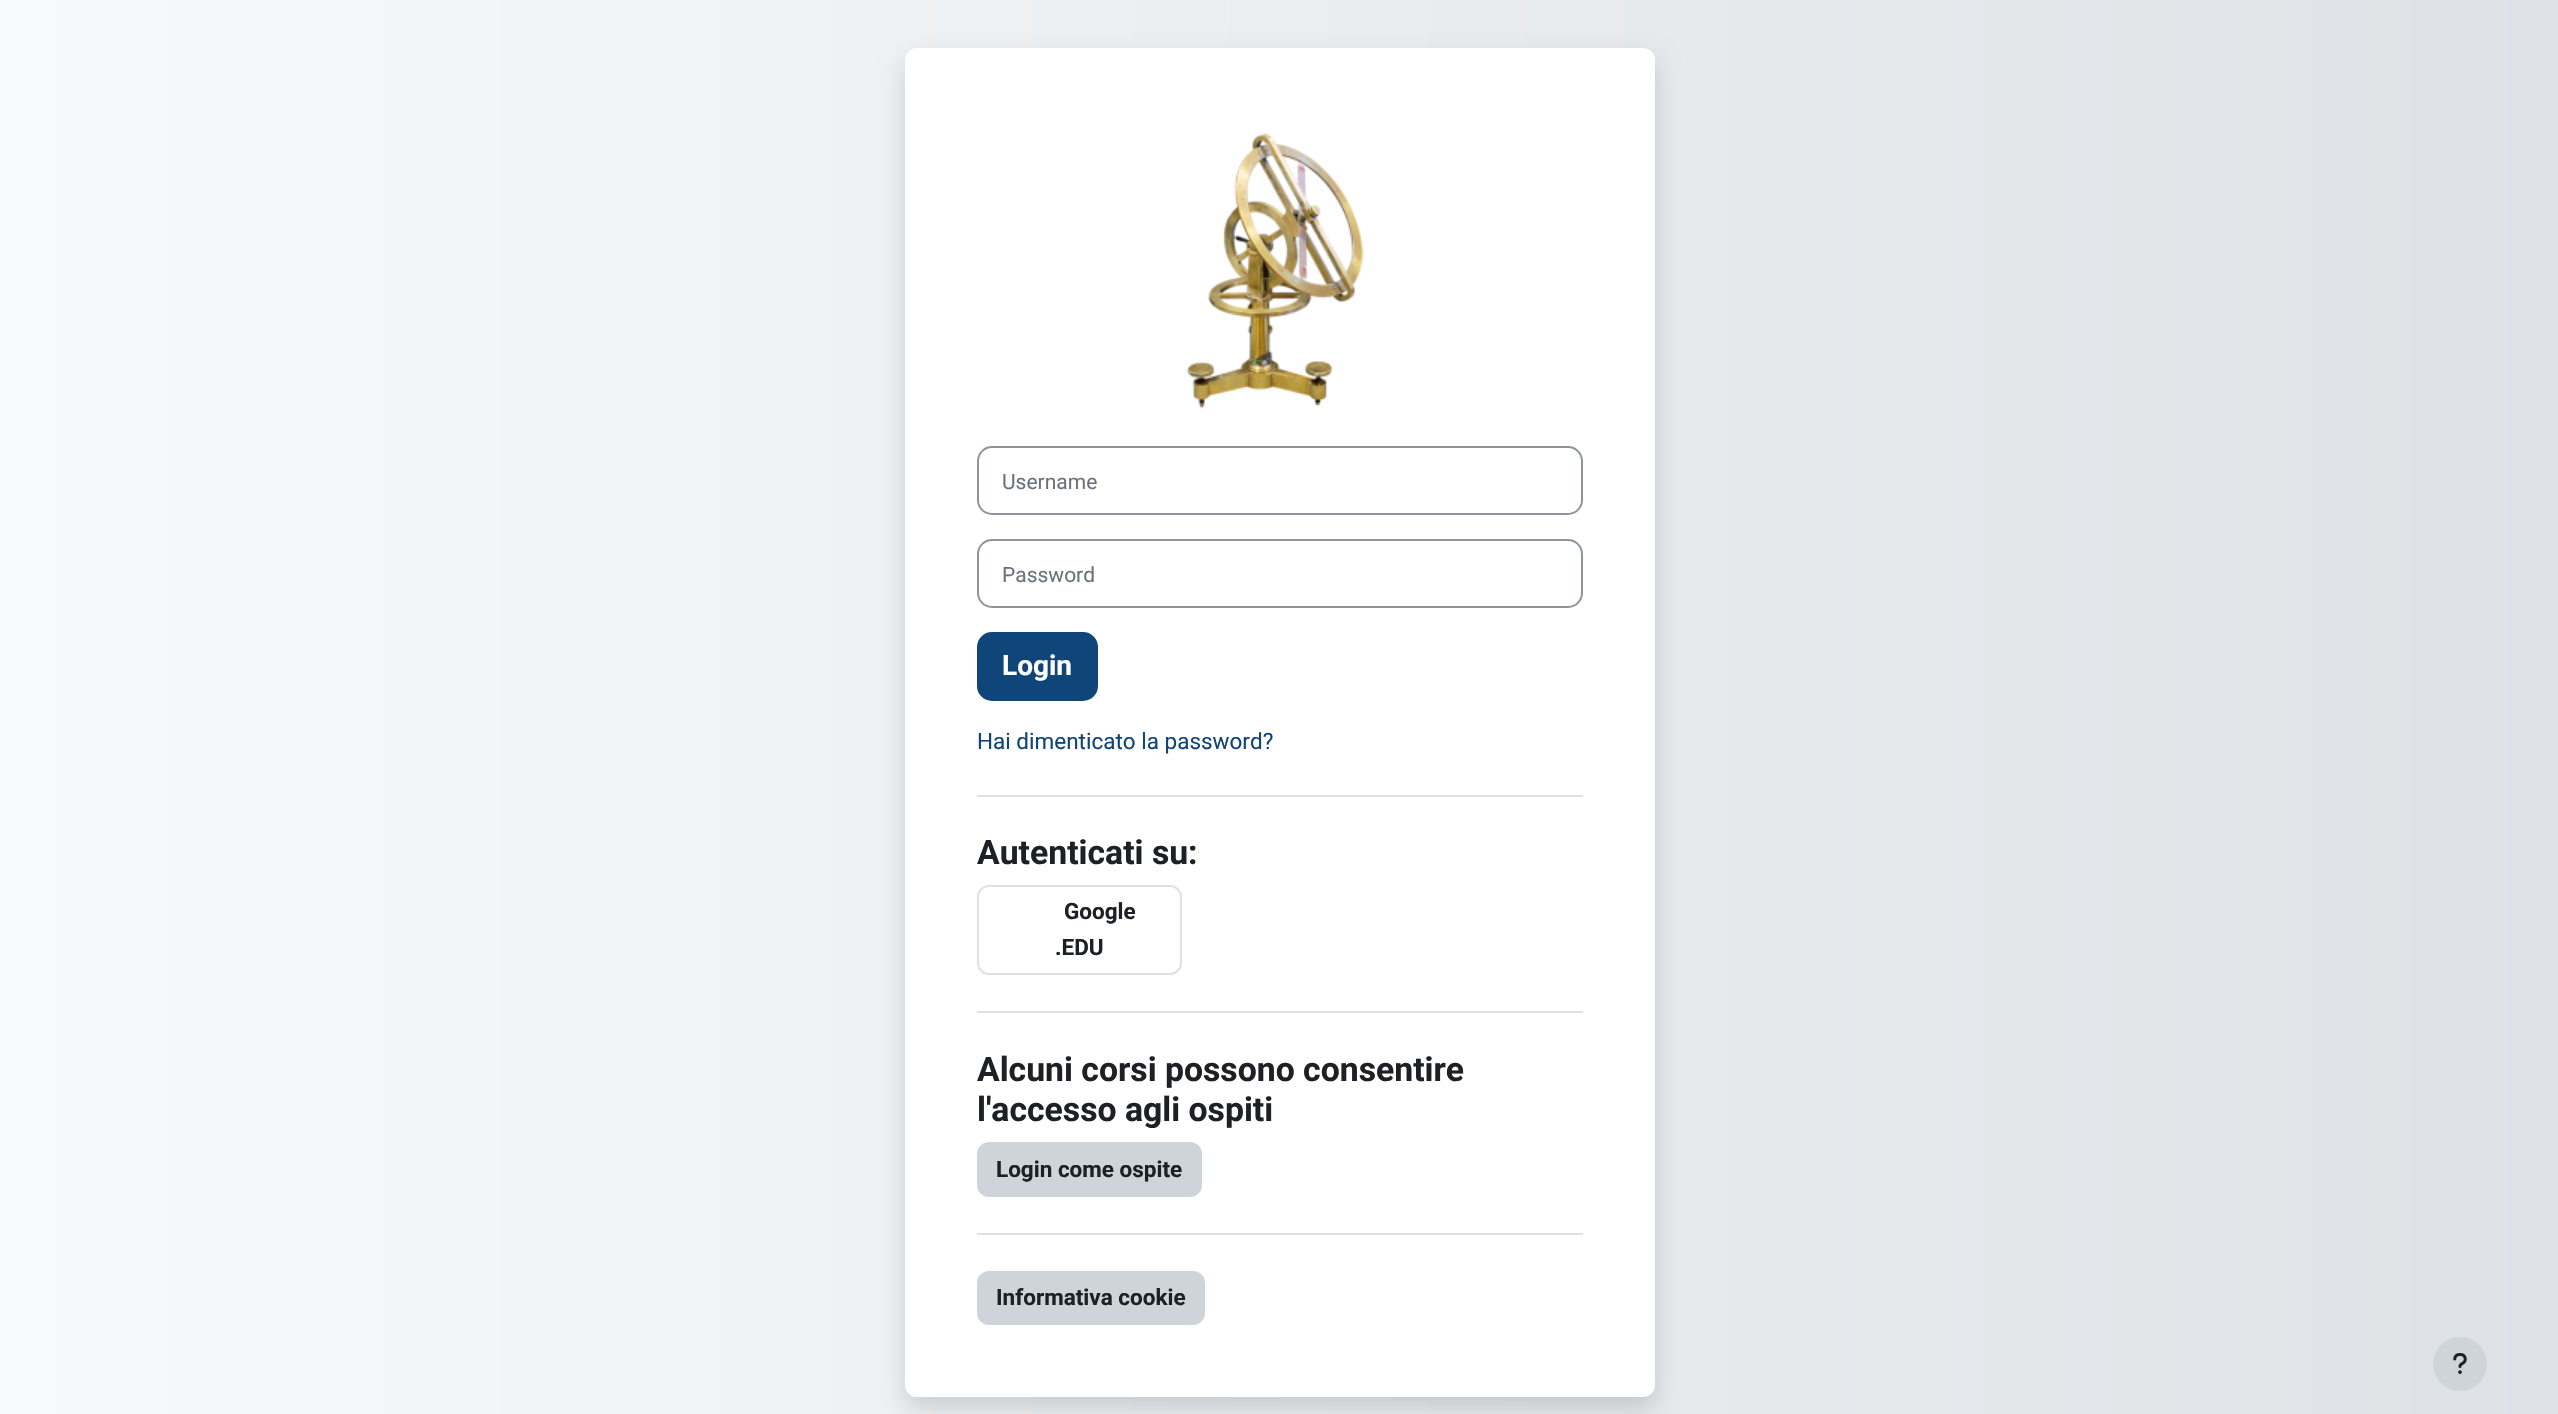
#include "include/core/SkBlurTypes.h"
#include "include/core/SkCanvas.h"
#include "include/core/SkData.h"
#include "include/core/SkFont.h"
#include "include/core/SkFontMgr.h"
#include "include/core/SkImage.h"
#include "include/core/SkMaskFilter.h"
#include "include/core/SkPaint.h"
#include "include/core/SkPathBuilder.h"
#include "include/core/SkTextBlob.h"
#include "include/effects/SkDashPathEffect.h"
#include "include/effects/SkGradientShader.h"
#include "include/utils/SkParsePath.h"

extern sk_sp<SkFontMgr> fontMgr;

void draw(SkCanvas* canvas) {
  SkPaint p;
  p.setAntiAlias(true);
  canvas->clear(SK_ColorWHITE);
  {
    const SkColor colors[] = {SkColorSetRGB(248, 249, 250), SkColorSetRGB(222, 226, 230)};
    const float stops[] = {0, 1};
    const SkPoint ends[] = {{0, 722}, {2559, 722}};
    p.setShader(SkGradientShader::MakeLinear(ends, colors, stops, 2, SkTileMode::kClamp));
    p.setAlpha(255);
  }
  canvas->drawRect(SkRect::MakeLTRB(0, 0, 2558, 1414), p);
  p.setShader(nullptr);
  p.setColor(SkColorSetARGB(38, 0, 0, 0));
  p.setMaskFilter(SkMaskFilter::MakeBlur(kNormal_SkBlurStyle, 12));
  canvas->drawRoundRect(SkRect::MakeLTRB(905, 60, 1655, 1409), 12, 12, p);
  p.setMaskFilter(nullptr);
  p.setColor(SK_ColorWHITE);
  canvas->drawRoundRect(SkRect::MakeLTRB(905, 48, 1655, 1397), 12, 12, p);
  canvas->drawImageRect(SkImages::DeferredFromEncodedData(SkData::MakeFromFileName("images/1.png")), SkRect::MakeLTRB(1186, 133, 1364, 409), SkSamplingOptions());
  p.setStyle(SkPaint::kStroke_Style);
  p.setStrokeWidth(2);
  p.setColor(SkColorSetRGB(143, 149, 158));
  canvas->drawRoundRect(SkRect::MakeLTRB(978, 447, 1582, 514), 14, 14, p);
  canvas->drawRoundRect(SkRect::MakeLTRB(978, 540, 1582, 607), 14, 14, p);
  p.setStyle(SkPaint::kFill_Style);
  p.setColor(SkColorSetRGB(16, 69, 122));
  canvas->drawRoundRect(SkRect::MakeLTRB(978, 633, 1097, 700), 14, 14, p);
  p.setStyle(SkPaint::kStroke_Style);
  canvas->drawRoundRect(SkRect::MakeLTRB(978, 633, 1097, 700), 14, 14, p);
  p.setStyle(SkPaint::kFill_Style);
  p.setColor(SkColorSetRGB(222, 226, 230));
  canvas->drawRect(SkRect::MakeLTRB(977, 795, 1583, 797), p);
  p.setStyle(SkPaint::kStroke_Style);
  canvas->drawRoundRect(SkRect::MakeLTRB(978, 886, 1181, 974), 11, 11, p);
  p.setStyle(SkPaint::kFill_Style);
  canvas->drawRect(SkRect::MakeLTRB(977, 1011, 1583, 1013), p);
  p.setColor(SkColorSetRGB(206, 212, 218));
  canvas->drawRoundRect(SkRect::MakeLTRB(978, 1143, 1201, 1196), 11, 11, p);
  p.setStyle(SkPaint::kStroke_Style);
  canvas->drawRoundRect(SkRect::MakeLTRB(978, 1143, 1201, 1196), 11, 11, p);
  p.setStyle(SkPaint::kFill_Style);
  p.setColor(SkColorSetRGB(222, 226, 230));
  canvas->drawRect(SkRect::MakeLTRB(977, 1233, 1583, 1235), p);
  p.setColor(SkColorSetRGB(206, 212, 218));
  canvas->drawRoundRect(SkRect::MakeLTRB(978, 1272, 1204, 1324), 11, 11, p);
  p.setStyle(SkPaint::kStroke_Style);
  canvas->drawRoundRect(SkRect::MakeLTRB(978, 1272, 1204, 1324), 11, 11, p);
  p.setStyle(SkPaint::kFill_Style);
  canvas->drawCircle(2460, 1364, 27, p);
  canvas->drawImageRect(SkImages::DeferredFromEncodedData(SkData::MakeFromFileName("images/2.png")), SkRect::MakeLTRB(2453, 1353, 2467, 1374), SkSamplingOptions());
  SkFont font1(fontMgr->matchFamilyStyle("Roboto", SkFontStyle::Normal()), 21);
  font1.setSubpixel(true);
  p.setColor(SkColorSetRGB(106, 115, 123));
  canvas->drawString("Username", 1002, 489, font1, p);
  canvas->drawString("Password", 1002, 582, font1, p);
  SkFont font2(fontMgr->matchFamilyStyle("Roboto", SkFontStyle::Bold()), 28);
  font2.setSubpixel(true);
  p.setColor(SK_ColorWHITE);
  canvas->drawString("Login", 1002, 675, font2, p);
  SkFont font3(fontMgr->matchFamilyStyle("Roboto", SkFontStyle::Normal()), 22.5f);
  font3.setSubpixel(true);
  p.setColor(SkColorSetRGB(16, 69, 122));
  canvas->drawString("Hai dimenticato la password?", 977, 749, font3, p);
  SkFont font4(fontMgr->matchFamilyStyle("Roboto", SkFontStyle::Bold()), 33.75f);
  font4.setSubpixel(true);
  p.setColor(SkColorSetRGB(29, 33, 37));
  canvas->drawString("Autenticati su:", 977, 864, font4, p);
  SkFont font5(fontMgr->matchFamilyStyle("Roboto", SkFontStyle::Bold()), 22.5f);
  font5.setSubpixel(true);
  canvas->drawString("Google", 1064, 919, font5, p);
  canvas->drawString(".EDU", 1055, 955, font5, p);
  canvas->drawString("Alcuni corsi possono consentire", 977, 1081, font4, p);
  canvas->drawString("l'accesso agli ospiti", 977, 1121, font4, p);
  canvas->drawString("Login come ospite", 996, 1177, font5, p);
  canvas->drawString("Informativa cookie", 996, 1305, font5, p);
}
